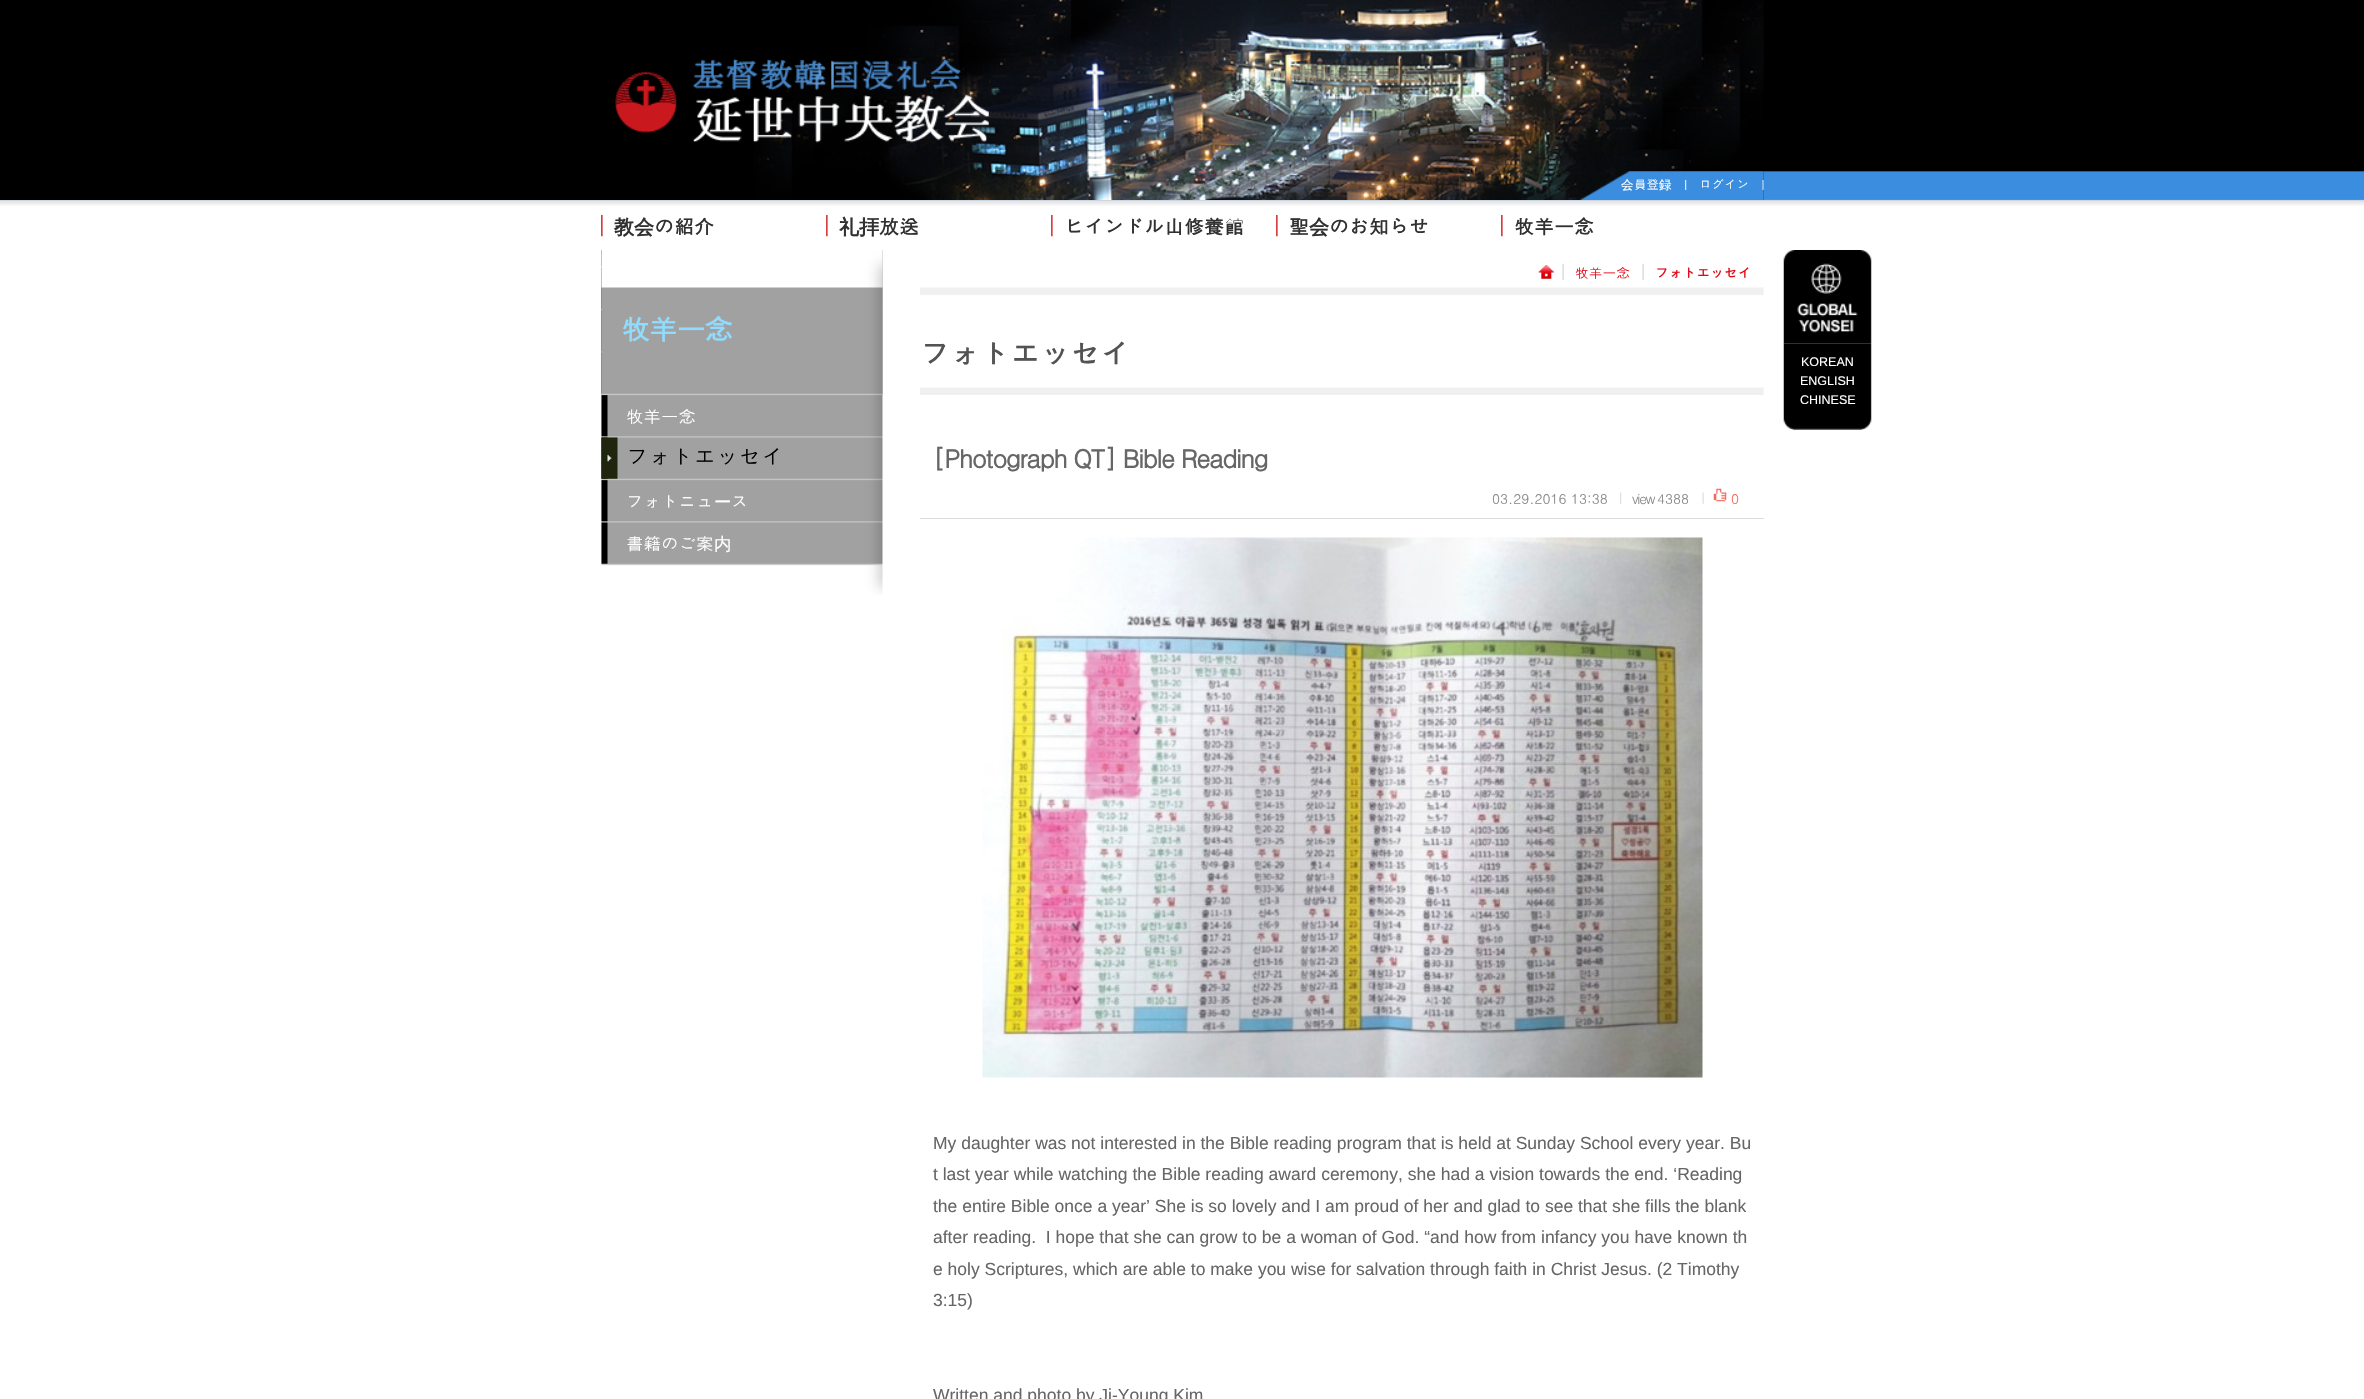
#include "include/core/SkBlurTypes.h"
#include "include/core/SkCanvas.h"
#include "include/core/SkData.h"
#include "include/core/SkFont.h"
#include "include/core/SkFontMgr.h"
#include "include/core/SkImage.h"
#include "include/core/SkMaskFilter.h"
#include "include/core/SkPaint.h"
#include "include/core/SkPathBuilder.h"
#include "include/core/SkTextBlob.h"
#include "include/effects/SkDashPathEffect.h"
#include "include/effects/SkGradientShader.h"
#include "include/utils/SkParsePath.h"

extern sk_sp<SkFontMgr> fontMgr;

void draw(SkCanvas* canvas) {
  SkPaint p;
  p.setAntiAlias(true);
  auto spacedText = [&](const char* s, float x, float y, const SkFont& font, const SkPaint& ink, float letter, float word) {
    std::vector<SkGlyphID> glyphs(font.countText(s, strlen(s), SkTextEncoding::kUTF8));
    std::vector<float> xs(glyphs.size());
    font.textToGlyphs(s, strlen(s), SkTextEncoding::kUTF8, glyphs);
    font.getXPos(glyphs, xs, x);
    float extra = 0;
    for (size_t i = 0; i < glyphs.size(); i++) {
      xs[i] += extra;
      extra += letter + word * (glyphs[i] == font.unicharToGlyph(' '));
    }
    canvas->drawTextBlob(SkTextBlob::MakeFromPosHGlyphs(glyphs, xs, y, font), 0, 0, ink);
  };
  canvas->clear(SK_ColorWHITE);
  canvas->drawImageRect(SkImages::DeferredFromEncodedData(SkData::MakeFromFileName("images/1.png")), SkRect::MakeLTRB(0, 0, 2364, 206), SkSamplingOptions());
  p.setColor(SK_ColorBLACK);
  canvas->drawRect(SkRect::MakeLTRB(0, 171, 754, 200), p);
  canvas->drawImageRect(SkImages::DeferredFromEncodedData(SkData::MakeFromFileName("images/2.png")), SkRect::MakeLTRB(754, 0, 1764, 200), SkSamplingOptions());
  canvas->drawImageRect(SkImages::DeferredFromEncodedData(SkData::MakeFromFileName("images/3.png")), SkRect::MakeLTRB(615, 58, 989, 143), SkSamplingOptions());
  canvas->drawImageRect(SkImages::DeferredFromEncodedData(SkData::MakeFromFileName("images/4.png")), SkRect::MakeLTRB(1580, 171, 1764, 200), SkSamplingOptions());
  canvas->drawImageRect(SkImages::DeferredFromEncodedData(SkData::MakeFromFileName("images/5.png")), SkRect::MakeLTRB(1685, 180, 1687, 190), SkSamplingOptions());
  canvas->drawImageRect(SkImages::DeferredFromEncodedData(SkData::MakeFromFileName("images/6.png")), SkRect::MakeLTRB(1762, 180, 1764, 190), SkSamplingOptions());
  canvas->drawImageRect(SkImages::DeferredFromEncodedData(SkData::MakeFromFileName("images/7.png")), SkRect::MakeLTRB(601, 215, 603, 237), SkSamplingOptions());
  canvas->drawImageRect(SkImages::DeferredFromEncodedData(SkData::MakeFromFileName("images/7.png")), SkRect::MakeLTRB(826, 215, 828, 237), SkSamplingOptions());
  canvas->drawImageRect(SkImages::DeferredFromEncodedData(SkData::MakeFromFileName("images/7.png")), SkRect::MakeLTRB(1051, 215, 1053, 237), SkSamplingOptions());
  canvas->drawImageRect(SkImages::DeferredFromEncodedData(SkData::MakeFromFileName("images/7.png")), SkRect::MakeLTRB(1276, 215, 1278, 237), SkSamplingOptions());
  canvas->drawImageRect(SkImages::DeferredFromEncodedData(SkData::MakeFromFileName("images/7.png")), SkRect::MakeLTRB(1501, 215, 1503, 237), SkSamplingOptions());
  canvas->drawImageRect(SkImages::DeferredFromEncodedData(SkData::MakeFromFileName("images/8.png")), SkRect::MakeLTRB(1538, 265, 1554, 279), SkSamplingOptions());
  canvas->drawImageRect(SkImages::DeferredFromEncodedData(SkData::MakeFromFileName("images/9.png")), SkRect::MakeLTRB(1562, 263, 1564, 280), SkSamplingOptions());
  canvas->drawImageRect(SkImages::DeferredFromEncodedData(SkData::MakeFromFileName("images/9.png")), SkRect::MakeLTRB(1642, 263, 1644, 280), SkSamplingOptions());
  canvas->drawImageRect(SkImages::DeferredFromEncodedData(SkData::MakeFromFileName("images/10.png")), SkRect::MakeLTRB(601, 250, 883, 595), SkSamplingOptions());
  canvas->drawImageRect(SkImages::DeferredFromEncodedData(SkData::MakeFromFileName("images/11.png")), SkRect::MakeLTRB(601, 250, 883, 395), SkSamplingOptions());
  canvas->drawImageRect(SkImages::DeferredFromEncodedData(SkData::MakeFromFileName("images/12.png")), SkRect::MakeLTRB(601, 437, 618, 479), SkSamplingOptions());
  canvas->drawImageRect(SkImages::DeferredFromEncodedData(SkData::MakeFromFileName("images/13.png")), SkRect::MakeLTRB(920, 287, 1764, 395), SkSamplingOptions());
  p.setColor(SkColorSetRGB(221, 221, 221));
  canvas->drawRect(SkRect::MakeLTRB(920, 518, 1764, 519), p);
  canvas->drawImageRect(SkImages::DeferredFromEncodedData(SkData::MakeFromFileName("images/14.png")), SkRect::MakeLTRB(1620, 492, 1622, 504), SkSamplingOptions());
  canvas->drawImageRect(SkImages::DeferredFromEncodedData(SkData::MakeFromFileName("images/15.png")), SkRect::MakeLTRB(1702, 492, 1704, 504), SkSamplingOptions());
  canvas->drawImageRect(SkImages::DeferredFromEncodedData(SkData::MakeFromFileName("images/16.png")), SkRect::MakeLTRB(1713, 488, 1727, 502), SkSamplingOptions());
  canvas->drawImageRect(SkImages::DeferredFromEncodedData(SkData::MakeFromFileName("images/17.png")), SkRect::MakeLTRB(982, 537, 1703, 1078), SkSamplingOptions());
  canvas->drawImageRect(SkImages::DeferredFromEncodedData(SkData::MakeFromFileName("images/19.png")), SkRect::MakeLTRB(1783, 343, 1872, 430), SkSamplingOptions());
  canvas->drawImageRect(SkImages::DeferredFromEncodedData(SkData::MakeFromFileName("images/18.png")), SkRect::MakeLTRB(1783, 250, 1872, 344), SkSamplingOptions());
  SkFont font1(fontMgr->matchFamilyStyle("WenQuanYi Zen Hei", SkFontStyle(500, SkFontStyle::kNormal_Width, SkFontStyle::kUpright_Slant)), 12.5f);
  font1.setSubpixel(true);
  p.setColor(SK_ColorWHITE);
  canvas->drawString("会", 1621, 189, font1, p);
  SkFont font2(fontMgr->matchFamilyStyle("Dotum", SkFontStyle::Normal()), 12.5f);
  font2.setSubpixel(true);
  canvas->drawString("員登", 1634, 189, font2, p);
  canvas->drawString("録", 1659, 189, font1, p);
  canvas->drawString("ログイン", 1699, 189, font2, p);
  SkFont font3(fontMgr->matchFamilyStyle("WenQuanYi Zen Hei", SkFontStyle::Bold()), 20);
  font3.setSubpixel(true);
  p.setColor(SkColorSetRGB(49, 49, 49));
  canvas->drawString("教会", 614, 234, font3, p);
  SkFont font4(fontMgr->matchFamilyStyle("Dotum", SkFontStyle::Bold()), 20);
  font4.setSubpixel(true);
  canvas->drawString("の紹介", 654, 234, font4, p);
  canvas->drawString("礼拝", 839, 234, font3, p);
  canvas->drawString("放送", 879, 234, font4, p);
  canvas->drawString("ヒインドル山修養館", 1064, 234, font4, p);
  canvas->drawString("聖", 1289, 234, font4, p);
  canvas->drawString("会", 1309, 234, font3, p);
  canvas->drawString("のお知らせ", 1329, 234, font4, p);
  canvas->drawString("牧羊一念", 1514, 234, font4, p);
  SkFont font5(fontMgr->matchFamilyStyle("Dotum", SkFontStyle::Normal()), 13.75f);
  font5.setSubpixel(true);
  p.setColor(SkColorSetRGB(226, 10, 23));
  canvas->drawString("牧羊一念", 1575, 278, font5, p);
  SkFont font6(fontMgr->matchFamilyStyle("Dotum", SkFontStyle::Bold()), 13.75f);
  font6.setSubpixel(true);
  canvas->drawString("フォトエッセイ", 1655, 278, font6, p);
  SkFont font7(fontMgr->matchFamilyStyle("Dotum", SkFontStyle::Bold()), 29);
  font7.setSubpixel(true);
  p.setColor(SkColorSetRGB(143, 220, 255));
  spacedText("牧羊一念", 621, 340, font7, p, -1.25f, 0);
  SkFont font8(fontMgr->matchFamilyStyle("Dotum", SkFontStyle::Normal()), 17.5f);
  font8.setSubpixel(true);
  p.setColor(SK_ColorWHITE);
  canvas->drawString("牧羊一念", 626, 423, font8, p);
  SkFont font9(fontMgr->matchFamilyStyle("Dotum", SkFontStyle::Normal()), 22.5f);
  font9.setSubpixel(true);
  p.setColor(SK_ColorBLACK);
  canvas->drawString("フォトエッセイ", 626, 465, font9, p);
  p.setColor(SK_ColorWHITE);
  canvas->drawString("フォトニュ", 626, 508, font8, p);
  SkFont font10(fontMgr->matchFamilyStyle("WenQuanYi Zen Hei", SkFontStyle(500, SkFontStyle::kNormal_Width, SkFontStyle::kUpright_Slant)), 17.5f);
  font10.setSubpixel(true);
  canvas->drawString("ー", 714, 508, font10, p);
  canvas->drawString("ス", 731, 508, font8, p);
  canvas->drawString("書籍のご案", 626, 550, font8, p);
  canvas->drawString("内", 714, 550, font10, p);
  SkFont font11(fontMgr->matchFamilyStyle("Dotum", SkFontStyle::Bold()), 30);
  font11.setSubpixel(true);
  p.setColor(SkColorSetRGB(83, 83, 83));
  canvas->drawString("フォトエッセイ", 920, 365, font11, p);
  SkFont font12(fontMgr->matchFamilyStyle("Dotum", SkFontStyle::Bold()), 25);
  font12.setSubpixel(true);
  p.setColor(SkColorSetRGB(102, 102, 102));
  spacedText("[Photograph QT] Bible Reading", 933, 468, font12, p, -1.25f, 0);
  p.setColor(SkColorSetRGB(136, 136, 136));
  canvas->drawString("03.29.2016 13:38", 1492, 504, font5, p);
  spacedText("view", 1632, 504, font5, p, -1.25f, 0);
  canvas->drawString("4388", 1657, 504, font5, p);
  p.setColor(SkColorSetRGB(244, 105, 91));
  canvas->drawString("0", 1731, 504, font5, p);
  SkFont font13(fontMgr->matchFamilyStyle("Liberation Sans", SkFontStyle::Normal()), 17.5f);
  font13.setSubpixel(true);
  p.setColor(SkColorSetRGB(102, 102, 102));
  canvas->drawString("My daughter was not interested in the Bible reading program that is held at Sunday School every year. Bu", 933, 1149, font13, p);
  canvas->drawString("t last year while watching the Bible reading award ceremony, she had a vision towards the end. ‘Reading", 933, 1180, font13, p);
  canvas->drawString("the entire Bible once a year’ She is so lovely and I am proud of her and glad to see that she fills the blank", 933, 1212, font13, p);
  canvas->drawString("after reading.  I hope that she can grow to be a woman of God. “and how from infancy you have known th", 933, 1243, font13, p);
  canvas->drawString("e holy Scriptures, which are able to make you wise for salvation through faith in Christ Jesus. (2 Timothy", 933, 1275, font13, p);
  canvas->drawString("3:15)", 933, 1306, font13, p);
  canvas->drawString("Written and photo by Ji-Young Kim", 933, 1401, font13, p);
  SkFont font14(fontMgr->matchFamilyStyle("Liberation Sans", SkFontStyle::Normal()), 12.5f);
  font14.setSubpixel(true);
  p.setColor(SK_ColorWHITE);
  canvas->drawString("KOREAN", 1801, 366, font14, p);
  canvas->drawString("ENGLISH", 1800, 385, font14, p);
  canvas->drawString("CHINESE", 1800, 404, font14, p);
}
